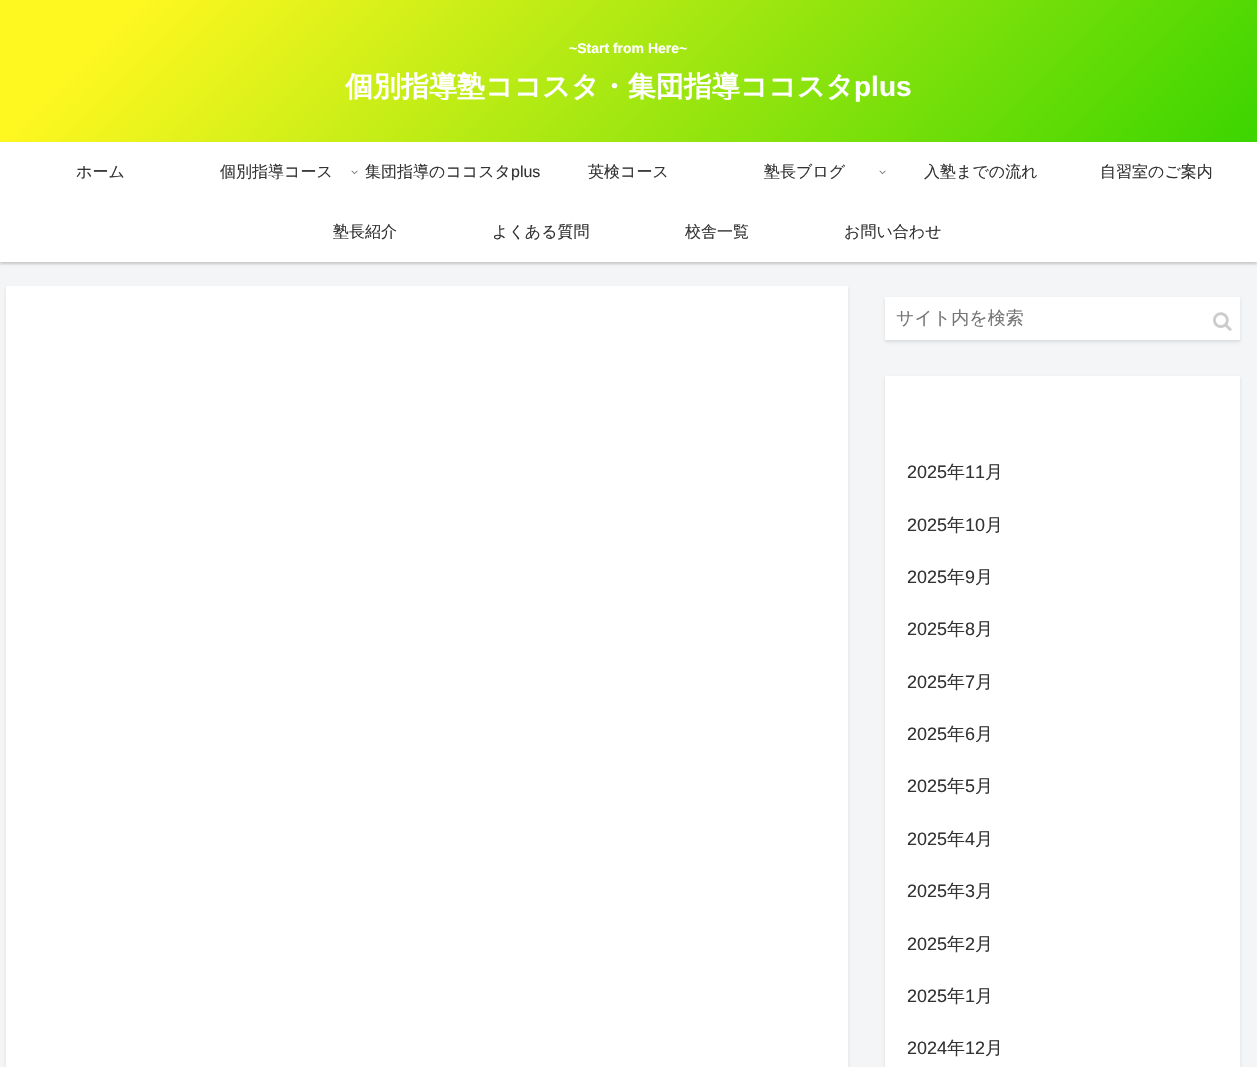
#include "include/core/SkBlurTypes.h"
#include "include/core/SkCanvas.h"
#include "include/core/SkData.h"
#include "include/core/SkFont.h"
#include "include/core/SkFontMgr.h"
#include "include/core/SkImage.h"
#include "include/core/SkMaskFilter.h"
#include "include/core/SkPaint.h"
#include "include/core/SkPathBuilder.h"
#include "include/core/SkTextBlob.h"
#include "include/effects/SkDashPathEffect.h"
#include "include/effects/SkGradientShader.h"
#include "include/utils/SkParsePath.h"

extern sk_sp<SkFontMgr> fontMgr;

void draw(SkCanvas* canvas) {
  SkPaint p;
  p.setAntiAlias(true);
  canvas->clear(SkColorSetRGB(244, 245, 247));
  p.setColor(SkColorSetARGB(26, 0, 0, 0));
  p.setMaskFilter(SkMaskFilter::MakeBlur(kNormal_SkBlurStyle, 1.5f));
  canvas->drawRect(SkRect::MakeLTRB(0, 2, 1257, 264), p);
  p.setMaskFilter(nullptr);
  p.setColor(SK_ColorWHITE);
  canvas->drawRect(SkRect::MakeLTRB(0, 142, 1257, 262), p);
  {
    const SkColor colors[] = {SkColorSetRGB(255, 247, 32), SkColorSetRGB(60, 213, 0)};
    const float stops[] = {0.1f, 1};
    const SkPoint ends[] = {{279, -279}, {978, 421}};
    p.setShader(SkGradientShader::MakeLinear(ends, colors, stops, 2, SkTileMode::kClamp));
    p.setAlpha(255);
  }
  canvas->drawRect(SkRect::MakeLTRB(0, 0, 1257, 142), p);
  canvas->save();
  canvas->clipRect(SkRect::MakeLTRB(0, 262, 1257, 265));
  p.setShader(nullptr);
  p.setColor(SkColorSetARGB(26, 0, 0, 0));
  p.setMaskFilter(SkMaskFilter::MakeBlur(kNormal_SkBlurStyle, 1.5f));
  canvas->drawRect(SkRect::MakeLTRB(0, 144, 1257, 264), p);
  p.setMaskFilter(nullptr);
  canvas->restore();
  canvas->drawImageRect(SkImages::DeferredFromEncodedData(SkData::MakeFromFileName("images/1.png")), SkRect::MakeLTRB(351, 170, 358, 175), SkSamplingOptions());
  canvas->drawImageRect(SkImages::DeferredFromEncodedData(SkData::MakeFromFileName("images/1.png")), SkRect::MakeLTRB(879, 170, 886, 175), SkSamplingOptions());
  p.setMaskFilter(SkMaskFilter::MakeBlur(kNormal_SkBlurStyle, 1.5f));
  canvas->drawRect(SkRect::MakeLTRB(6, 288, 848, 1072), p);
  p.setMaskFilter(nullptr);
  p.setColor(SK_ColorWHITE);
  canvas->drawRect(SkRect::MakeLTRB(6, 286, 848, 1067), p);
  p.setColor(SkColorSetARGB(26, 0, 0, 0));
  p.setMaskFilter(SkMaskFilter::MakeBlur(kNormal_SkBlurStyle, 1.5f));
  canvas->drawRect(SkRect::MakeLTRB(885, 299, 1240, 342), p);
  p.setMaskFilter(nullptr);
  p.setColor(SK_ColorWHITE);
  canvas->drawRect(SkRect::MakeLTRB(885, 297, 1240, 340), p);
  canvas->drawImageRect(SkImages::DeferredFromEncodedData(SkData::MakeFromFileName("images/2.png")), SkRect::MakeLTRB(1213, 312, 1232, 331), SkSamplingOptions());
  p.setColor(SkColorSetARGB(26, 0, 0, 0));
  p.setMaskFilter(SkMaskFilter::MakeBlur(kNormal_SkBlurStyle, 1.5f));
  canvas->drawRect(SkRect::MakeLTRB(885, 378, 1240, 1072), p);
  p.setMaskFilter(nullptr);
  p.setColor(SK_ColorWHITE);
  canvas->drawRect(SkRect::MakeLTRB(885, 376, 1240, 1067), p);
  SkFont font1(fontMgr->matchFamilyStyle("Liberation Sans", SkFontStyle::Bold()), 14);
  font1.setSubpixel(true);
  canvas->drawString("~Start from Here~", 569, 53, font1, p);
  SkFont font2(fontMgr->matchFamilyStyle("WenQuanYi Zen Hei", SkFontStyle::Bold()), 28);
  font2.setSubpixel(true);
  canvas->drawString("個別指導塾ココスタ・集団指導ココスタ", 345, 96, font2, p);
  SkFont font3(fontMgr->matchFamilyStyle("Liberation Sans", SkFontStyle::Bold()), 28);
  font3.setSubpixel(true);
  canvas->drawString("plus", 854, 96, font3, p);
  SkFont font4(fontMgr->matchFamilyStyle("WenQuanYi Zen Hei", SkFontStyle(500, SkFontStyle::kNormal_Width, SkFontStyle::kUpright_Slant)), 16);
  font4.setSubpixel(true);
  p.setColor(SkColorSetRGB(51, 51, 51));
  canvas->drawString("ホーム", 76, 177, font4, p);
  canvas->drawString("個別指導コース", 220, 177, font4, p);
  canvas->drawString("集団指導のココスタ", 365, 177, font4, p);
  SkFont font5(fontMgr->matchFamilyStyle("Liberation Sans", SkFontStyle::Normal()), 16);
  font5.setSubpixel(true);
  canvas->drawString("plus", 511, 177, font5, p);
  canvas->drawString("英検コース", 588, 177, font4, p);
  canvas->drawString("塾長ブログ", 764, 177, font4, p);
  canvas->drawString("入塾までの流れ", 924, 177, font4, p);
  canvas->drawString("自習室のご案内", 1100, 177, font4, p);
  canvas->drawString("塾長紹介", 333, 237, font4, p);
  canvas->drawString("よくある質問", 492, 237, font4, p);
  canvas->drawString("校舎一覧", 685, 237, font4, p);
  canvas->drawString("お問い合わせ", 844, 237, font4, p);
  SkFont font6(fontMgr->matchFamilyStyle("WenQuanYi Zen Hei", SkFontStyle(500, SkFontStyle::kNormal_Width, SkFontStyle::kUpright_Slant)), 18);
  font6.setSubpixel(true);
  p.setColor(SkColorSetRGB(117, 117, 117));
  canvas->drawString("サイト内を検索", 896, 324, font6, p);
  SkFont font7(fontMgr->matchFamilyStyle("Liberation Sans", SkFontStyle::Normal()), 18);
  font7.setSubpixel(true);
  p.setColor(SkColorSetRGB(51, 51, 51));
  canvas->drawString("2025", 907, 478, font7, p);
  canvas->drawString("年", 947, 478, font6, p);
  canvas->drawString("11", 965, 478, font7, p);
  canvas->drawString("月", 985, 478, font6, p);
  canvas->drawString("2025", 907, 531, font7, p);
  canvas->drawString("年", 947, 531, font6, p);
  canvas->drawString("10", 965, 531, font7, p);
  canvas->drawString("月", 985, 531, font6, p);
  canvas->drawString("2025", 907, 583, font7, p);
  canvas->drawString("年", 947, 583, font6, p);
  canvas->drawString("9", 965, 583, font7, p);
  canvas->drawString("月", 975, 583, font6, p);
  canvas->drawString("2025", 907, 635, font7, p);
  canvas->drawString("年", 947, 635, font6, p);
  canvas->drawString("8", 965, 635, font7, p);
  canvas->drawString("月", 975, 635, font6, p);
  canvas->drawString("2025", 907, 688, font7, p);
  canvas->drawString("年", 947, 688, font6, p);
  canvas->drawString("7", 965, 688, font7, p);
  canvas->drawString("月", 975, 688, font6, p);
  canvas->drawString("2025", 907, 740, font7, p);
  canvas->drawString("年", 947, 740, font6, p);
  canvas->drawString("6", 965, 740, font7, p);
  canvas->drawString("月", 975, 740, font6, p);
  canvas->drawString("2025", 907, 792, font7, p);
  canvas->drawString("年", 947, 792, font6, p);
  canvas->drawString("5", 965, 792, font7, p);
  canvas->drawString("月", 975, 792, font6, p);
  canvas->drawString("2025", 907, 845, font7, p);
  canvas->drawString("年", 947, 845, font6, p);
  canvas->drawString("4", 965, 845, font7, p);
  canvas->drawString("月", 975, 845, font6, p);
  canvas->drawString("2025", 907, 897, font7, p);
  canvas->drawString("年", 947, 897, font6, p);
  canvas->drawString("3", 965, 897, font7, p);
  canvas->drawString("月", 975, 897, font6, p);
  canvas->drawString("2025", 907, 950, font7, p);
  canvas->drawString("年", 947, 950, font6, p);
  canvas->drawString("2", 965, 950, font7, p);
  canvas->drawString("月", 975, 950, font6, p);
  canvas->drawString("2025", 907, 1002, font7, p);
  canvas->drawString("年", 947, 1002, font6, p);
  canvas->drawString("1", 965, 1002, font7, p);
  canvas->drawString("月", 975, 1002, font6, p);
  canvas->drawString("2024", 907, 1054, font7, p);
  canvas->drawString("年", 947, 1054, font6, p);
  canvas->drawString("12", 965, 1054, font7, p);
  canvas->drawString("月", 985, 1054, font6, p);
}
